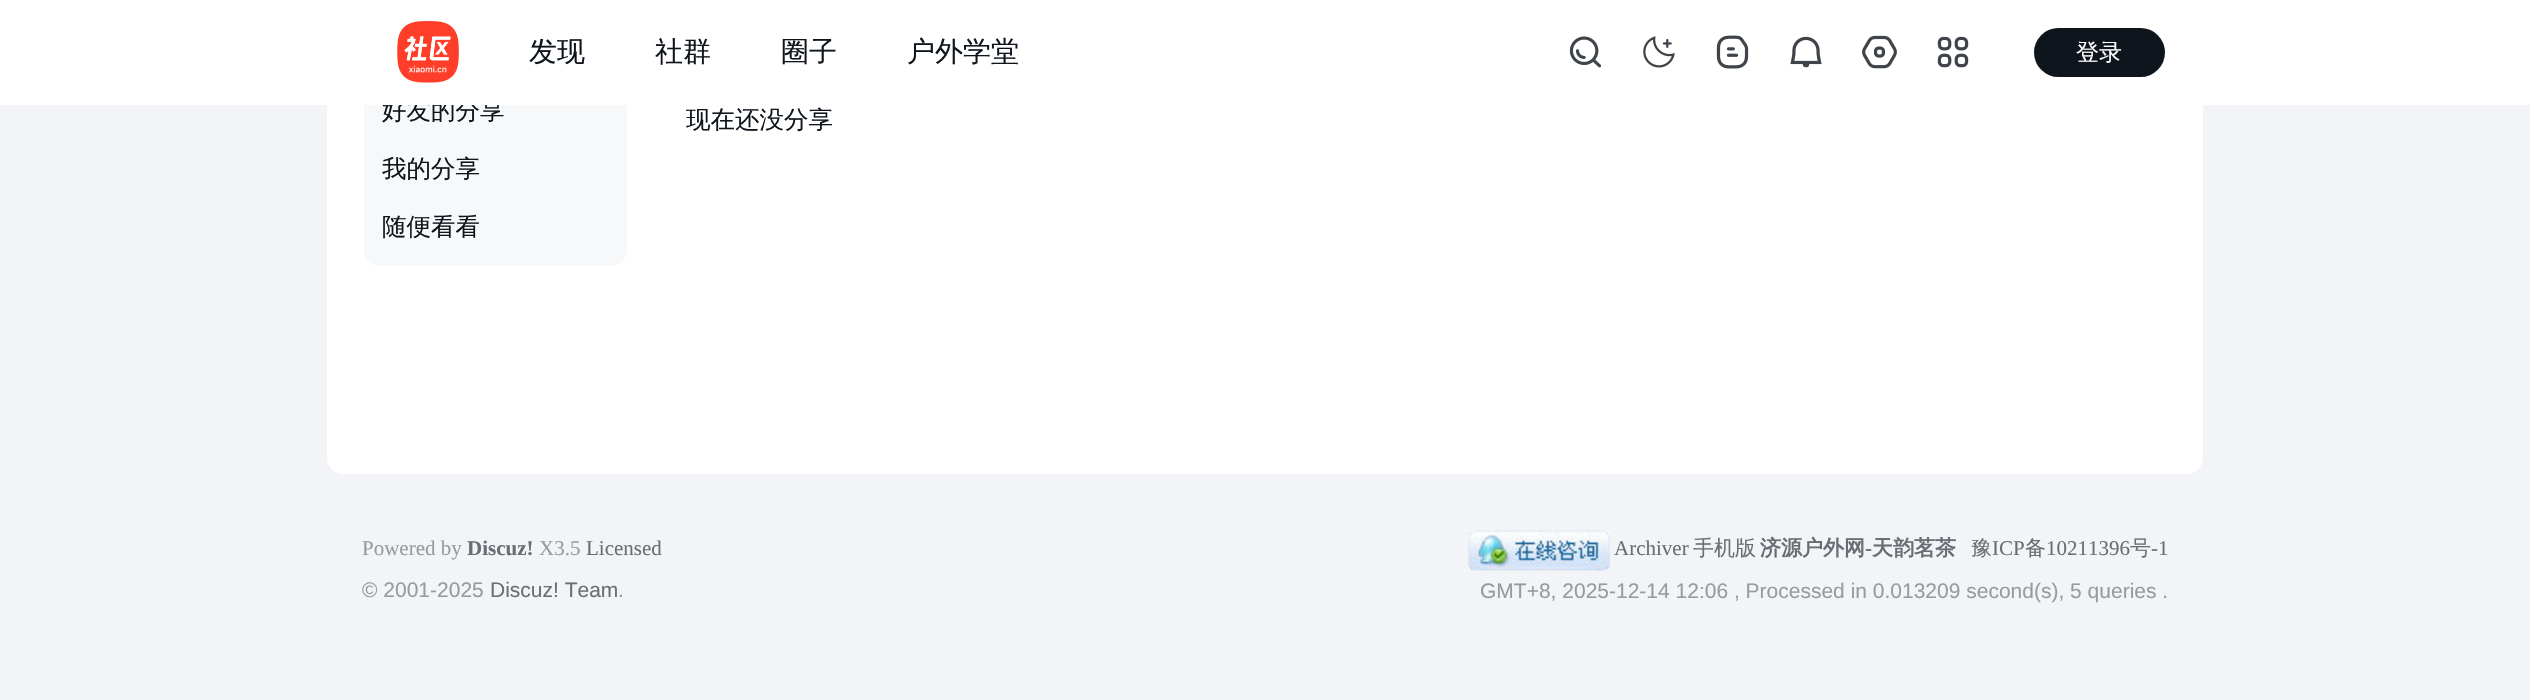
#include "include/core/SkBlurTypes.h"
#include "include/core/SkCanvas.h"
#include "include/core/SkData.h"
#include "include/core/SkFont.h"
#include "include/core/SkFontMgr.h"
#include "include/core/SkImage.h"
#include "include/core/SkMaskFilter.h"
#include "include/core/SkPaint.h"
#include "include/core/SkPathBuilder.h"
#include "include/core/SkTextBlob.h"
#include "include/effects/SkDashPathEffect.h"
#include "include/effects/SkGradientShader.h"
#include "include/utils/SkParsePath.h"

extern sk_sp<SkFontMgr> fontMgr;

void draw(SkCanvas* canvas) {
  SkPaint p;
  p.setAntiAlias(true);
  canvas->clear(SkColorSetRGB(243, 244, 247));
  p.setColor(SK_ColorWHITE);
  canvas->drawRoundRect(SkRect::MakeLTRB(327, -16, 2203, 474), 16, 16, p);
  p.setColor(SkColorSetRGB(247, 248, 249));
  canvas->drawRoundRect(SkRect::MakeLTRB(364, 9, 627, 266), 16, 16, p);
  canvas->drawImageRect(SkImages::DeferredFromEncodedData(SkData::MakeFromFileName("images/8.png")), SkRect::MakeLTRB(1468, 530, 1610, 571), SkSamplingOptions());
  SkFont font1(fontMgr->matchFamilyStyle("WenQuanYi Zen Hei", SkFontStyle(500, SkFontStyle::kNormal_Width, SkFontStyle::kUpright_Slant)), 24.5f);
  font1.setSubpixel(true);
  p.setColor(SkColorSetRGB(14, 21, 28));
  canvas->drawString("好友的分享", 382, 119, font1, p);
  p.setColor(SK_ColorWHITE);
  canvas->drawRect(SkRect::MakeLTRB(0, 0, 2530, 105), p);
  p.setColor(SkColorSetRGB(14, 21, 28));
  canvas->drawRoundRect(SkRect::MakeLTRB(2034, 28, 2165, 77), 24.5f, 24.5f, p);
  SkFont font2(fontMgr->matchFamilyStyle("WenQuanYi Zen Hei", SkFontStyle(500, SkFontStyle::kNormal_Width, SkFontStyle::kUpright_Slant)), 23);
  font2.setSubpixel(true);
  p.setColor(SK_ColorWHITE);
  canvas->drawString("登录", 2076, 60, font2, p);
  canvas->drawImageRect(SkImages::DeferredFromEncodedData(SkData::MakeFromFileName("images/7.png")), SkRect::MakeLTRB(1937, 36, 1969, 68), SkSamplingOptions());
  canvas->drawImageRect(SkImages::DeferredFromEncodedData(SkData::MakeFromFileName("images/6.png")), SkRect::MakeLTRB(1862, 35, 1897, 69), SkSamplingOptions());
  canvas->drawImageRect(SkImages::DeferredFromEncodedData(SkData::MakeFromFileName("images/5.png")), SkRect::MakeLTRB(1790, 36, 1822, 68), SkSamplingOptions());
  canvas->drawImageRect(SkImages::DeferredFromEncodedData(SkData::MakeFromFileName("images/4.png")), SkRect::MakeLTRB(1716, 35, 1749, 69), SkSamplingOptions());
  canvas->drawImageRect(SkImages::DeferredFromEncodedData(SkData::MakeFromFileName("images/3.png")), SkRect::MakeLTRB(1643, 36, 1675, 68), SkSamplingOptions());
  canvas->drawImageRect(SkImages::DeferredFromEncodedData(SkData::MakeFromFileName("images/2.png")), SkRect::MakeLTRB(1569, 36, 1602, 68), SkSamplingOptions());
  SkFont font3(fontMgr->matchFamilyStyle("WenQuanYi Zen Hei", SkFontStyle(500, SkFontStyle::kNormal_Width, SkFontStyle::kUpright_Slant)), 28);
  font3.setSubpixel(true);
  p.setColor(SkColorSetRGB(14, 21, 28));
  canvas->drawString("户外学堂", 907, 61, font3, p);
  canvas->drawString("圈子", 781, 61, font3, p);
  canvas->drawString("社群", 655, 61, font3, p);
  canvas->drawString("发现", 529, 61, font3, p);
  canvas->drawImageRect(SkImages::DeferredFromEncodedData(SkData::MakeFromFileName("images/1.png")), SkRect::MakeLTRB(397, 21, 459, 83), SkSamplingOptions());
  canvas->drawString("我的分享", 382, 177, font1, p);
  canvas->drawString("随便看看", 382, 235, font1, p);
  canvas->drawString("现在还没分享", 686, 128, font1, p);
  SkFont font4(fontMgr->matchFamilyStyle("Liberation Serif", SkFontStyle::Normal()), 21);
  font4.setSubpixel(true);
  p.setColor(SkColorSetRGB(151, 155, 159));
  canvas->drawString("Powered by", 362, 555, font4, p);
  SkFont font5(fontMgr->matchFamilyStyle("Liberation Serif", SkFontStyle::Bold()), 21);
  font5.setSubpixel(true);
  p.setColor(SkColorSetRGB(106, 110, 116));
  canvas->drawString("Discuz!", 467, 555, font5, p);
  p.setColor(SkColorSetRGB(151, 155, 159));
  canvas->drawString("X3.5", 539, 555, font4, p);
  p.setColor(SkColorSetRGB(106, 110, 116));
  canvas->drawString("Licensed", 586, 555, font4, p);
  SkFont font6(fontMgr->matchFamilyStyle("Liberation Sans", SkFontStyle::Normal()), 21);
  font6.setSubpixel(true);
  p.setColor(SkColorSetRGB(151, 155, 159));
  canvas->drawString("© 2001-2025", 362, 597, font6, p);
  p.setColor(SkColorSetRGB(106, 110, 116));
  canvas->drawString("Discuz! Team", 490, 597, font6, p);
  p.setColor(SkColorSetRGB(151, 155, 159));
  canvas->drawString(".", 618, 597, font6, p);
  p.setColor(SkColorSetRGB(106, 110, 116));
  canvas->drawString("Archiver", 1614, 555, font4, p);
  SkFont font7(fontMgr->matchFamilyStyle("WenQuanYi Zen Hei", SkFontStyle(500, SkFontStyle::kNormal_Width, SkFontStyle::kUpright_Slant)), 21);
  font7.setSubpixel(true);
  canvas->drawString("手机版", 1693, 555, font7, p);
  SkFont font8(fontMgr->matchFamilyStyle("WenQuanYi Zen Hei", SkFontStyle::Bold()), 21);
  font8.setSubpixel(true);
  canvas->drawString("济源户外网", 1760, 555, font8, p);
  canvas->drawString("-", 1865, 555, font5, p);
  canvas->drawString("天韵茗茶", 1872, 555, font8, p);
  canvas->drawString("豫", 1971, 555, font7, p);
  canvas->drawString("ICP", 1992, 555, font4, p);
  canvas->drawString("备", 2025, 555, font7, p);
  canvas->drawString("10211396", 2046, 555, font4, p);
  canvas->drawString("号", 2130, 555, font7, p);
  canvas->drawString("-1", 2151, 555, font4, p);
  p.setColor(SkColorSetRGB(151, 155, 159));
  canvas->drawString("GMT+8, 2025-12-14 12:06 , Processed in 0.013209 second(s), 5 queries .", 1480, 598, font6, p);
}
